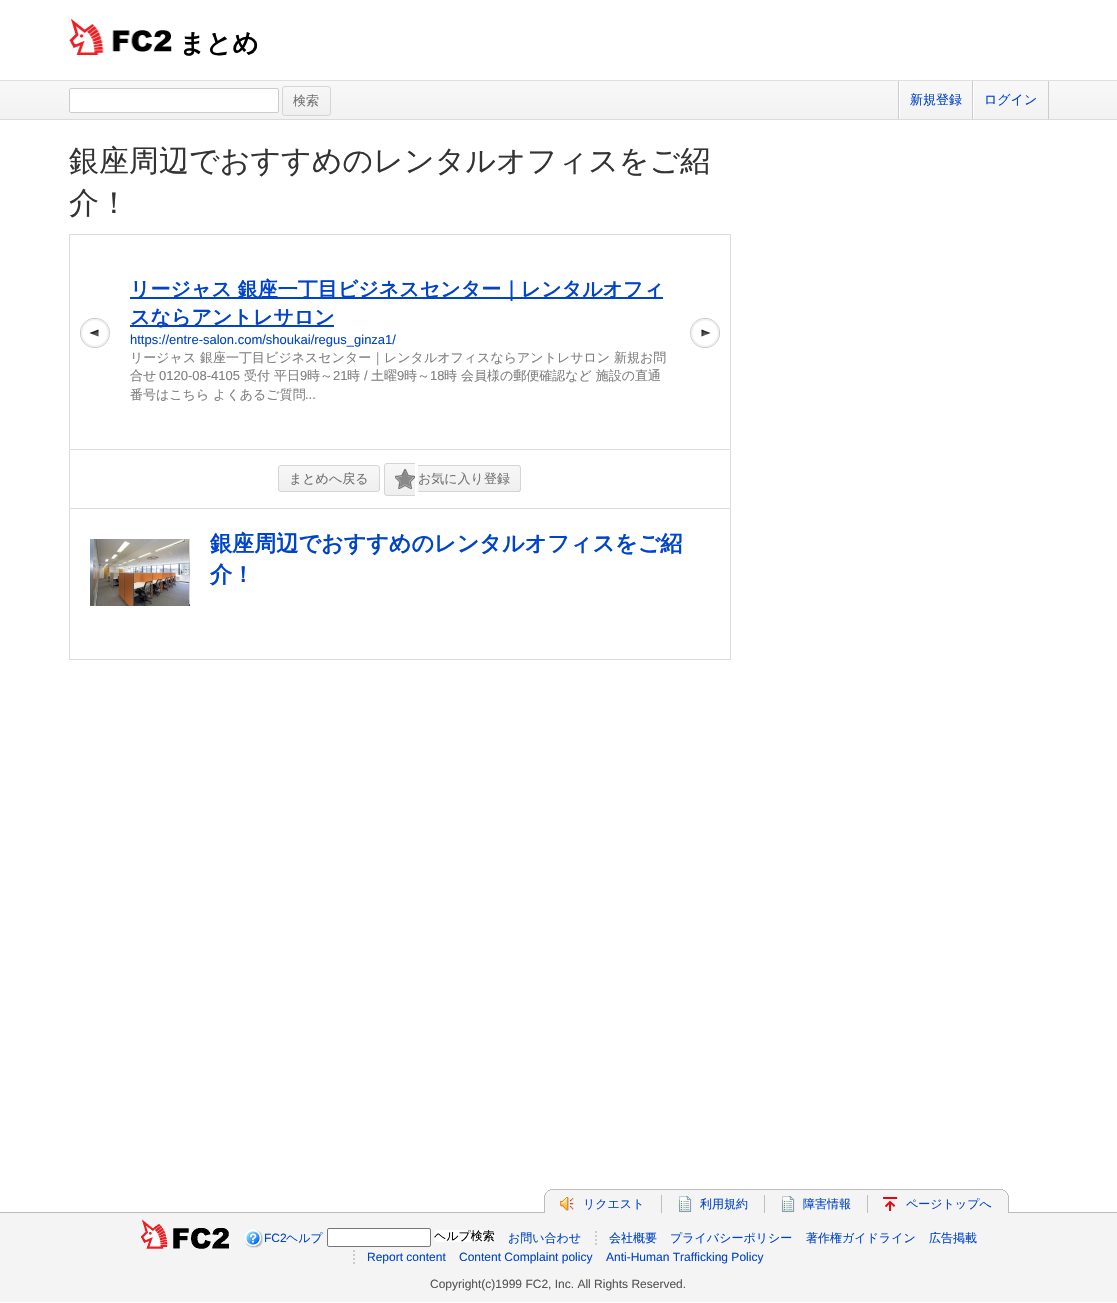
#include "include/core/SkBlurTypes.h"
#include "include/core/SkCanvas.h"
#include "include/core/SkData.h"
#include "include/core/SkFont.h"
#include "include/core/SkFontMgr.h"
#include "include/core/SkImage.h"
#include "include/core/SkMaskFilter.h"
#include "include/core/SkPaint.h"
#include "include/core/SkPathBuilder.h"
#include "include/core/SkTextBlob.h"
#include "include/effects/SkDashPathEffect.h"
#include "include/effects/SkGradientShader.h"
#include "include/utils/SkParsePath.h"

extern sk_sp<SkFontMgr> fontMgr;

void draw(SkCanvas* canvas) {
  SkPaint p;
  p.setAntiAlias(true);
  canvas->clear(SK_ColorWHITE);
  canvas->drawImageRect(SkImages::DeferredFromEncodedData(SkData::MakeFromFileName("images/1.png")), SkRect::MakeLTRB(69, 19, 172, 55), SkSamplingOptions());
  {
    const SkColor colors[] = {SkColorSetRGB(248, 248, 248), SkColorSetRGB(242, 242, 242)};
    const float stops[] = {0, 1};
    const SkPoint ends[] = {{559, 81}, {559, 119}};
    p.setShader(SkGradientShader::MakeLinear(ends, colors, stops, 2, SkTileMode::kClamp));
    p.setAlpha(255);
  }
  canvas->drawRect(SkRect::MakeLTRB(0, 81, 1117, 119), p);
  p.setShader(nullptr);
  p.setColor(SkColorSetRGB(223, 223, 223));
  canvas->drawRect(SkRect::MakeLTRB(0, 80, 1117, 81), p);
  p.setColor(SkColorSetRGB(219, 219, 219));
  canvas->drawRect(SkRect::MakeLTRB(0, 119, 1117, 120), p);
  p.setColor(SK_ColorWHITE);
  canvas->drawRoundRect(SkRect::MakeLTRB(69.5f, 88.5f, 278.5f, 112.5f), 1.5f, 1.5f, p);
  p.setStyle(SkPaint::kStroke_Style);
  p.setStrokeWidth(1);
  p.setColor(SkColorSetRGB(204, 204, 204));
  canvas->drawRoundRect(SkRect::MakeLTRB(69.5f, 88.5f, 278.5f, 112.5f), 1.5f, 1.5f, p);
  canvas->save();
  canvas->clipPath(SkPathBuilder().moveTo(285, 86).lineTo(328, 86).cubicTo(329.5f, 86, 331, 87.5f, 331, 89).lineTo(331, 113).cubicTo(331, 114.5f, 329.5f, 116, 328, 116).lineTo(285, 116).cubicTo(283.5f, 116, 282, 114.5f, 282, 113).lineTo(282, 89).cubicTo(282, 87.5f, 283.5f, 86, 285, 86).close().detach(), true);
  p.setStyle(SkPaint::kFill_Style);
  {
    const SkColor colors[] = {SkColorSetRGB(247, 247, 247), SkColorSetRGB(239, 239, 239)};
    const float stops[] = {0, 1};
    const SkPoint ends[] = {{307, 87}, {307, 115}};
    p.setShader(SkGradientShader::MakeLinear(ends, colors, stops, 2, SkTileMode::kClamp));
    p.setAlpha(255);
  }
  canvas->drawRect(SkRect::MakeLTRB(282, 87, 331, 115), p);
  canvas->restore();
  p.setStyle(SkPaint::kStroke_Style);
  p.setShader(nullptr);
  p.setColor(SkColorSetRGB(213, 213, 214));
  canvas->drawRoundRect(SkRect::MakeLTRB(282.5f, 86.5f, 330.5f, 115.5f), 2.5f, 2.5f, p);
  p.setStyle(SkPaint::kFill_Style);
  p.setColor(SkColorSetRGB(204, 204, 204));
  canvas->drawRect(SkRect::MakeLTRB(898, 81, 899, 119), p);
  p.setColor(SK_ColorWHITE);
  canvas->drawRect(SkRect::MakeLTRB(899, 81, 900, 119), p);
  p.setColor(SkColorSetRGB(204, 204, 204));
  canvas->drawRect(SkRect::MakeLTRB(1048, 81, 1049, 119), p);
  canvas->drawRect(SkRect::MakeLTRB(972, 81, 973, 119), p);
  p.setColor(SK_ColorWHITE);
  canvas->drawRect(SkRect::MakeLTRB(973, 81, 974, 119), p);
  p.setStyle(SkPaint::kStroke_Style);
  p.setColor(SkColorSetRGB(220, 220, 220));
  canvas->drawRect(SkRect::MakeLTRB(69.5f, 234.5f, 730.5f, 449.5f), p);
  canvas->drawImageRect(SkImages::DeferredFromEncodedData(SkData::MakeFromFileName("images/2.png")), SkRect::MakeLTRB(80, 318, 110, 348), SkSamplingOptions());
  p.setStyle(SkPaint::kFill_Style);
  p.setColor(SkColorSetRGB(0, 68, 204));
  canvas->drawRect(SkRect::MakeLTRB(130, 297, 663, 299), p);
  canvas->drawRect(SkRect::MakeLTRB(130, 325, 334, 327), p);
  canvas->drawImageRect(SkImages::DeferredFromEncodedData(SkData::MakeFromFileName("images/3.png")), SkRect::MakeLTRB(690, 318, 720, 348), SkSamplingOptions());
  p.setColor(SkColorSetRGB(220, 220, 220));
  canvas->drawRect(SkRect::MakeLTRB(730, 450, 731, 508), p);
  canvas->drawRect(SkRect::MakeLTRB(69, 450, 70, 508), p);
  canvas->save();
  canvas->clipPath(SkPathBuilder().moveTo(281, 465).lineTo(377, 465).cubicTo(378.5f, 465, 380, 466.5f, 380, 468).lineTo(380, 489).cubicTo(380, 490.5f, 378.5f, 492, 377, 492).lineTo(281, 492).cubicTo(279.5f, 492, 278, 490.5f, 278, 489).lineTo(278, 468).cubicTo(278, 466.5f, 279.5f, 465, 281, 465).close().detach(), true);
  {
    const SkColor colors[] = {SkColorSetRGB(247, 247, 247), SkColorSetRGB(239, 239, 239)};
    const float stops[] = {0, 1};
    const SkPoint ends[] = {{329, 466}, {329, 491}};
    p.setShader(SkGradientShader::MakeLinear(ends, colors, stops, 2, SkTileMode::kClamp));
    p.setAlpha(255);
  }
  canvas->drawRect(SkRect::MakeLTRB(278, 466, 380, 491), p);
  canvas->restore();
  p.setStyle(SkPaint::kStroke_Style);
  p.setShader(nullptr);
  p.setColor(SkColorSetRGB(213, 213, 214));
  canvas->drawRoundRect(SkRect::MakeLTRB(278.5f, 465.5f, 379.5f, 491.5f), 2.5f, 2.5f, p);
  canvas->save();
  canvas->clipPath(SkPathBuilder().moveTo(387, 463).lineTo(415, 463).lineTo(415, 496).lineTo(387, 496).cubicTo(385.5f, 496, 384, 494.5f, 384, 493).lineTo(384, 466).cubicTo(384, 464.5f, 385.5f, 463, 387, 463).close().detach(), true);
  p.setStyle(SkPaint::kFill_Style);
  {
    const SkColor colors[] = {SkColorSetRGB(247, 247, 247), SkColorSetRGB(239, 239, 239)};
    const float stops[] = {0, 1};
    const SkPoint ends[] = {{400, 464}, {400, 495}};
    p.setShader(SkGradientShader::MakeLinear(ends, colors, stops, 2, SkTileMode::kClamp));
    p.setAlpha(255);
  }
  canvas->drawRect(SkRect::MakeLTRB(384, 464, 415, 495), p);
  canvas->restore();
  p.setShader(nullptr);
  p.setColor(SkColorSetRGB(213, 213, 214));
  canvas->drawPath(SkPathBuilder(SkPathFillType::kEvenOdd).moveTo(387, 463).lineTo(415, 463).lineTo(415, 496).lineTo(387, 496).cubicTo(385.5f, 496, 384, 494.5f, 384, 493).lineTo(384, 466).cubicTo(384, 464.5f, 385.5f, 463, 387, 463).close().moveTo(387, 464).lineTo(415, 464).lineTo(415, 495).lineTo(387, 495).cubicTo(386, 495, 385, 494, 385, 493).lineTo(385, 466).cubicTo(385, 465, 386, 464, 387, 464).close().detach(), p);
  canvas->drawImageRect(SkImages::DeferredFromEncodedData(SkData::MakeFromFileName("images/4.png")), SkRect::MakeLTRB(395, 469, 415, 489), SkSamplingOptions());
  canvas->save();
  canvas->clipPath(SkPathBuilder().moveTo(418, 465).lineTo(518, 465).cubicTo(519.5f, 465, 521, 466.5f, 521, 468).lineTo(521, 489).cubicTo(521, 490.5f, 519.5f, 492, 518, 492).lineTo(418, 492).close().detach(), true);
  {
    const SkColor colors[] = {SkColorSetRGB(247, 247, 247), SkColorSetRGB(239, 239, 239)};
    const float stops[] = {0, 1};
    const SkPoint ends[] = {{469, 466}, {469, 491}};
    p.setShader(SkGradientShader::MakeLinear(ends, colors, stops, 2, SkTileMode::kClamp));
    p.setAlpha(255);
  }
  canvas->drawRect(SkRect::MakeLTRB(418, 466, 521, 491), p);
  canvas->restore();
  p.setShader(nullptr);
  p.setColor(SkColorSetRGB(213, 213, 214));
  canvas->drawPath(SkPathBuilder(SkPathFillType::kEvenOdd).moveTo(418, 465).lineTo(518, 465).cubicTo(520, 465, 521, 466, 521, 468).lineTo(521, 489).cubicTo(521, 491, 520, 492, 518, 492).lineTo(418, 492).close().moveTo(418, 466).lineTo(518, 466).cubicTo(519, 466, 520, 467, 520, 468).lineTo(520, 489).cubicTo(520, 490, 519, 491, 518, 491).lineTo(418, 491).close().detach(), p);
  p.setStyle(SkPaint::kStroke_Style);
  p.setColor(SkColorSetRGB(220, 220, 220));
  canvas->drawRect(SkRect::MakeLTRB(69.5f, 508.5f, 730.5f, 659.5f), p);
  canvas->drawImageRect(SkImages::DeferredFromEncodedData(SkData::MakeFromFileName("images/5.png")), SkRect::MakeLTRB(90, 539, 190, 606), SkSamplingOptions());
  p.setStyle(SkPaint::kFill_Style);
  p.setColor(SkColorSetRGB(188, 188, 188));
  canvas->drawRect(SkRect::MakeLTRB(550, 1189, 1003, 1190), p);
  p.setColor(SkColorSetRGB(244, 244, 244));
  canvas->drawRect(SkRect::MakeLTRB(548, 1190, 1005, 1191), p);
  p.setColor(SkColorSetRGB(188, 188, 188));
  canvas->drawRect(SkRect::MakeLTRB(1003, 1190, 1005, 1191), p);
  canvas->drawRect(SkRect::MakeLTRB(548, 1190, 550, 1191), p);
  p.setColor(SkColorSetRGB(244, 244, 244));
  canvas->drawRect(SkRect::MakeLTRB(547, 1191, 1006, 1192), p);
  p.setColor(SkColorSetRGB(188, 188, 188));
  canvas->drawRect(SkRect::MakeLTRB(1005, 1191, 1006, 1192), p);
  canvas->drawRect(SkRect::MakeLTRB(547, 1191, 548, 1192), p);
  p.setColor(SkColorSetRGB(244, 244, 244));
  canvas->drawRect(SkRect::MakeLTRB(546, 1192, 1007, 1193), p);
  p.setColor(SkColorSetRGB(188, 188, 188));
  canvas->drawRect(SkRect::MakeLTRB(1006, 1192, 1007, 1193), p);
  canvas->drawRect(SkRect::MakeLTRB(546, 1192, 547, 1193), p);
  canvas->drawRect(SkRect::MakeLTRB(0, 1212, 1117, 1213), p);
  p.setColor(SkColorSetRGB(244, 244, 244));
  canvas->drawRect(SkRect::MakeLTRB(545, 1193, 1008, 1213), p);
  p.setColor(SkColorSetRGB(188, 188, 188));
  canvas->drawRect(SkRect::MakeLTRB(1007, 1193, 1008, 1195), p);
  canvas->drawRect(SkRect::MakeLTRB(545, 1193, 546, 1195), p);
  canvas->drawRect(SkRect::MakeLTRB(1008, 1195, 1009, 1213), p);
  canvas->drawRect(SkRect::MakeLTRB(544, 1195, 545, 1213), p);
  canvas->drawImageRect(SkImages::DeferredFromEncodedData(SkData::MakeFromFileName("images/6.png")), SkRect::MakeLTRB(559, 1197, 574, 1211), SkSamplingOptions());
  p.setColor(SkColorSetRGB(191, 191, 191));
  canvas->drawRect(SkRect::MakeLTRB(661, 1195, 662, 1213), p);
  canvas->drawImageRect(SkImages::DeferredFromEncodedData(SkData::MakeFromFileName("images/7.png")), SkRect::MakeLTRB(678, 1196, 692, 1213), SkSamplingOptions());
  canvas->drawRect(SkRect::MakeLTRB(764, 1195, 765, 1213), p);
  canvas->drawImageRect(SkImages::DeferredFromEncodedData(SkData::MakeFromFileName("images/7.png")), SkRect::MakeLTRB(781, 1196, 795, 1213), SkSamplingOptions());
  canvas->drawRect(SkRect::MakeLTRB(867, 1195, 868, 1213), p);
  canvas->drawImageRect(SkImages::DeferredFromEncodedData(SkData::MakeFromFileName("images/8.png")), SkRect::MakeLTRB(883, 1197, 898, 1211), SkSamplingOptions());
  p.setColor(SkColorSetRGB(244, 244, 244));
  canvas->drawRect(SkRect::MakeLTRB(0, 1213, 1117, 1302), p);
  canvas->drawImageRect(SkImages::DeferredFromEncodedData(SkData::MakeFromFileName("images/9.png")), SkRect::MakeLTRB(141, 1219, 229, 1249), SkSamplingOptions());
  canvas->drawImageRect(SkImages::DeferredFromEncodedData(SkData::MakeFromFileName("images/10.png")), SkRect::MakeLTRB(244, 1229, 263, 1248), SkSamplingOptions());
  p.setColor(SK_ColorWHITE);
  canvas->drawRoundRect(SkRect::MakeLTRB(327.5f, 1228.5f, 430.5f, 1246.5f), 1.5f, 1.5f, p);
  p.setStyle(SkPaint::kStroke_Style);
  p.setColor(SkColorSetRGB(118, 118, 118));
  canvas->drawRoundRect(SkRect::MakeLTRB(327.5f, 1228.5f, 430.5f, 1246.5f), 1.5f, 1.5f, p);
  p.setStyle(SkPaint::kFill_Style);
  p.setColor(SK_ColorWHITE);
  canvas->drawRoundRect(SkRect::MakeLTRB(434, 1230, 495, 1242), 4, 4, p);
  p.setStyle(SkPaint::kStroke_Style);
  p.setStrokeWidth(2);
  p.setColor(SkColorSetRGB(204, 204, 204));
  canvas->drawPath(SkPathBuilder().moveTo(596, 1231).lineTo(596, 1233).moveTo(596, 1235).lineTo(596, 1237).moveTo(596, 1239).lineTo(596, 1241).moveTo(596, 1243).lineTo(596, 1245).detach(), p);
  canvas->drawPath(SkPathBuilder().moveTo(354, 1250).lineTo(354, 1252).moveTo(354, 1254).lineTo(354, 1256).moveTo(354, 1258).lineTo(354, 1260).moveTo(354, 1262).lineTo(354, 1264).detach(), p);
  SkFont font1(fontMgr->matchFamilyStyle("WenQuanYi Zen Hei", SkFontStyle::Bold()), 26);
  font1.setSubpixel(true);
  p.setStyle(SkPaint::kFill_Style);
  p.setColor(SK_ColorBLACK);
  canvas->drawString("まとめ", 179, 52, font1, p);
  SkFont font2(fontMgr->matchFamilyStyle("WenQuanYi Zen Hei", SkFontStyle(500, SkFontStyle::kNormal_Width, SkFontStyle::kUpright_Slant)), 13);
  font2.setSubpixel(true);
  p.setColor(SkColorSetRGB(114, 114, 114));
  canvas->drawString("検索", 293, 105, font2, p);
  p.setColor(SkColorSetRGB(0, 68, 204));
  canvas->drawString("新規登録", 910, 104, font2, p);
  canvas->drawString("ログイン", 984, 104, font2, p);
  SkFont font3(fontMgr->matchFamilyStyle("WenQuanYi Zen Hei", SkFontStyle(500, SkFontStyle::kNormal_Width, SkFontStyle::kUpright_Slant)), 30);
  font3.setSubpixel(true);
  p.setColor(SkColorSetRGB(51, 51, 51));
  canvas->drawString("銀座周辺でおすすめのレンタルオフィスをご紹", 69, 171, font3, p);
  canvas->drawString("介！", 69, 213, font3, p);
  SkFont font4(fontMgr->matchFamilyStyle("WenQuanYi Zen Hei", SkFontStyle::Bold()), 20);
  font4.setSubpixel(true);
  p.setColor(SkColorSetRGB(0, 68, 204));
  canvas->drawString("リージャス 銀座一丁目ビジネスセンター｜レンタルオフィ", 130, 296, font4, p);
  canvas->drawString("スならアントレサロン", 130, 324, font4, p);
  SkFont font5(fontMgr->matchFamilyStyle("Liberation Sans", SkFontStyle::Normal()), 13);
  font5.setSubpixel(true);
  canvas->drawString("https://entre-salon.com/shoukai/regus_ginza1/", 130, 344, font5, p);
  p.setColor(SkColorSetRGB(128, 128, 128));
  canvas->drawString("リージャス 銀座一丁目ビジネスセンター｜レンタルオフィスならアントレサロン 新規お問", 130, 362, font2, p);
  canvas->drawString("合せ", 130, 380, font2, p);
  canvas->drawString("0120-08-4105", 159, 380, font5, p);
  canvas->drawString("受付 平日", 244, 380, font2, p);
  canvas->drawString("9", 300, 380, font5, p);
  canvas->drawString("時～", 307, 380, font2, p);
  canvas->drawString("21", 333, 380, font5, p);
  canvas->drawString("時", 347, 380, font2, p);
  canvas->drawString("/", 364, 380, font5, p);
  canvas->drawString("土曜", 371, 380, font2, p);
  canvas->drawString("9", 397, 380, font5, p);
  canvas->drawString("時～", 404, 380, font2, p);
  canvas->drawString("18", 430, 380, font5, p);
  canvas->drawString("時 会員様の郵便確認など 施設の直通", 444, 380, font2, p);
  canvas->drawString("番号はこちら よくあるご質問", 130, 399, font2, p);
  canvas->drawString("...", 305, 399, font5, p);
  p.setColor(SkColorSetRGB(114, 114, 114));
  canvas->drawString("まとめへ戻る", 289, 483, font2, p);
  canvas->drawString("お気に入り登録", 418, 483, font2, p);
  SkFont font6(fontMgr->matchFamilyStyle("WenQuanYi Zen Hei", SkFontStyle::Bold()), 22.1f);
  font6.setSubpixel(true);
  p.setColor(SkColorSetRGB(0, 68, 204));
  canvas->drawString("銀座周辺でおすすめのレンタルオフィスをご紹", 210, 551, font6, p);
  canvas->drawString("介！", 210, 582, font6, p);
  SkFont font7(fontMgr->matchFamilyStyle("WenQuanYi Zen Hei", SkFontStyle(500, SkFontStyle::kNormal_Width, SkFontStyle::kUpright_Slant)), 12);
  font7.setSubpixel(true);
  canvas->drawString("リクエスト", 583, 1208, font7, p);
  canvas->drawString("利用規約", 700, 1208, font7, p);
  canvas->drawString("障害情報", 803, 1208, font7, p);
  canvas->drawString("ページトップへ", 906, 1208, font7, p);
  SkFont font8(fontMgr->matchFamilyStyle("Liberation Sans", SkFontStyle::Normal()), 12);
  font8.setSubpixel(true);
  canvas->drawString("FC2", 264, 1242, font8, p);
  canvas->drawString("ヘルプ", 286, 1242, font7, p);
  p.setColor(SK_ColorBLACK);
  canvas->drawString("ヘルプ検索", 434, 1240, font7, p);
  p.setColor(SkColorSetRGB(0, 68, 204));
  canvas->drawString("お問い合わせ", 508, 1242, font7, p);
  canvas->drawString("会社概要", 609, 1242, font7, p);
  canvas->drawString("プライバシーポリシー", 670, 1242, font7, p);
  canvas->drawString("著作権ガイドライン", 806, 1242, font7, p);
  canvas->drawString("広告掲載", 929, 1242, font7, p);
  canvas->drawString("Report content", 367, 1261, font8, p);
  canvas->drawString("Content Complaint policy", 459, 1261, font8, p);
  canvas->drawString("Anti-Human Trafficking Policy", 606, 1261, font8, p);
  p.setColor(SkColorSetRGB(85, 85, 85));
  canvas->drawString("Copyright(c)1999 FC2, Inc. All Rights Reserved.", 430, 1288, font8, p);
}
